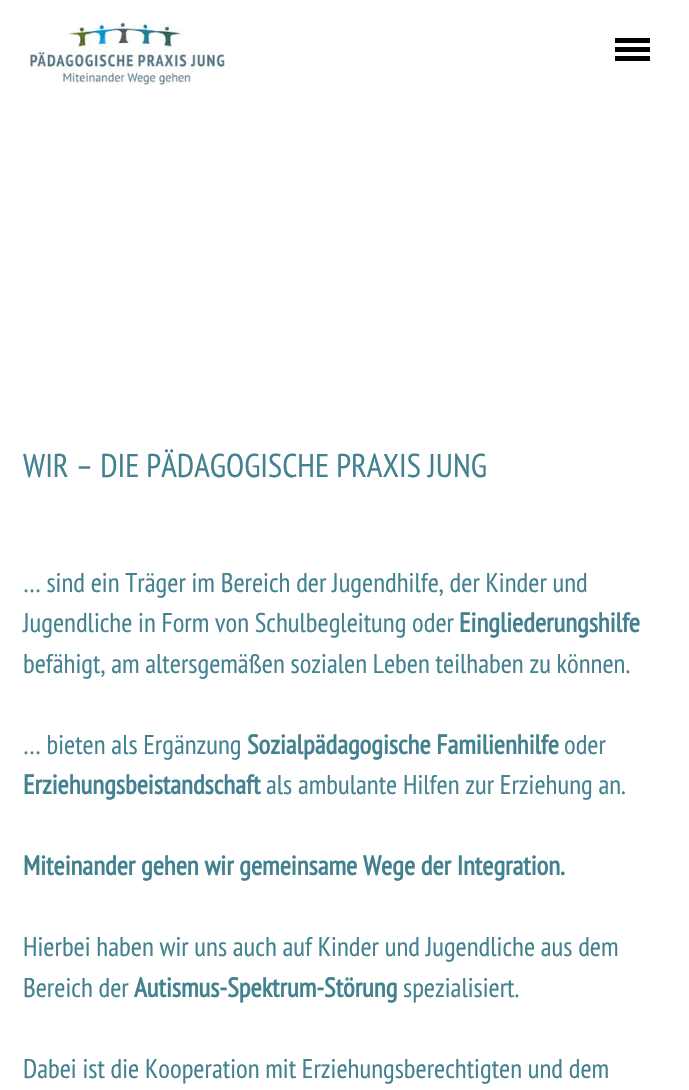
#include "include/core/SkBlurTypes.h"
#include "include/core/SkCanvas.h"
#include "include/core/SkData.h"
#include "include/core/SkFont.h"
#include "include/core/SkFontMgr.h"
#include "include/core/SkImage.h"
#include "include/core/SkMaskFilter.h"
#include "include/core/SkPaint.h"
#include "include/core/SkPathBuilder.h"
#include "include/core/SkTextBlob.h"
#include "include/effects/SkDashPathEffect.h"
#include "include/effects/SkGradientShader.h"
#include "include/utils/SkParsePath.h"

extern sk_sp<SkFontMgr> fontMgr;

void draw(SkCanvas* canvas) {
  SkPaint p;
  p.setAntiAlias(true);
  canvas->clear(SK_ColorWHITE);
  canvas->drawImageRect(SkImages::DeferredFromEncodedData(SkData::MakeFromFileName("images/1.png")), SkRect::MakeLTRB(30, 22, 225, 85), SkSamplingOptions());
  p.setColor(SK_ColorBLACK);
  canvas->drawRect(SkRect::MakeLTRB(615, 47, 650, 52), p);
  canvas->drawRect(SkRect::MakeLTRB(615, 38, 650, 43), p);
  canvas->drawRect(SkRect::MakeLTRB(615, 56, 650, 61), p);
  SkFont font1(fontMgr->matchFamilyStyle("PT Sans Narrow", SkFontStyle::Normal()), 33);
  font1.setSubpixel(true);
  p.setColor(SkColorSetRGB(66, 129, 143));
  canvas->drawString("WIR – DIE PÄDAGOGISCHE PRAXIS JUNG", 23, 477, font1, p);
  SkFont font2(fontMgr->matchFamilyStyle("PT Sans Narrow", SkFontStyle::Normal()), 27);
  font2.setSubpixel(true);
  canvas->drawString("… sind ein Träger im Bereich der Jugendhilfe, der Kinder und", 23, 592, font2, p);
  canvas->drawString("Jugendliche in Form von Schulbegleitung oder", 23, 632, font2, p);
  SkFont font3(fontMgr->matchFamilyStyle("PT Sans Narrow", SkFontStyle::Bold()), 27);
  font3.setSubpixel(true);
  canvas->drawString("Eingliederungshilfe", 459, 632, font3, p);
  canvas->drawString("befähigt, am altersgemäßen sozialen Leben teilhaben zu können.", 23, 673, font2, p);
  canvas->drawString("… bieten als Ergänzung", 23, 754, font2, p);
  canvas->drawString("Sozialpädagogische Familienhilfe", 247, 754, font3, p);
  canvas->drawString("oder", 564, 754, font2, p);
  canvas->drawString("Erziehungsbeistandschaft", 23, 794, font3, p);
  canvas->drawString("als ambulante Hilfen zur Erziehung an.", 266, 794, font2, p);
  canvas->drawString("Miteinander gehen wir gemeinsame Wege der Integration.", 23, 875, font3, p);
  canvas->drawString("Hierbei haben wir uns auch auf Kinder und Jugendliche aus dem", 23, 956, font2, p);
  canvas->drawString("Bereich der", 23, 997, font2, p);
  canvas->drawString("Autismus-Spektrum-Störung", 134, 997, font3, p);
  canvas->drawString("spezialisiert.", 403, 997, font2, p);
  canvas->drawString("Dabei ist die Kooperation mit Erziehungsberechtigten und dem", 23, 1078, font2, p);
}
